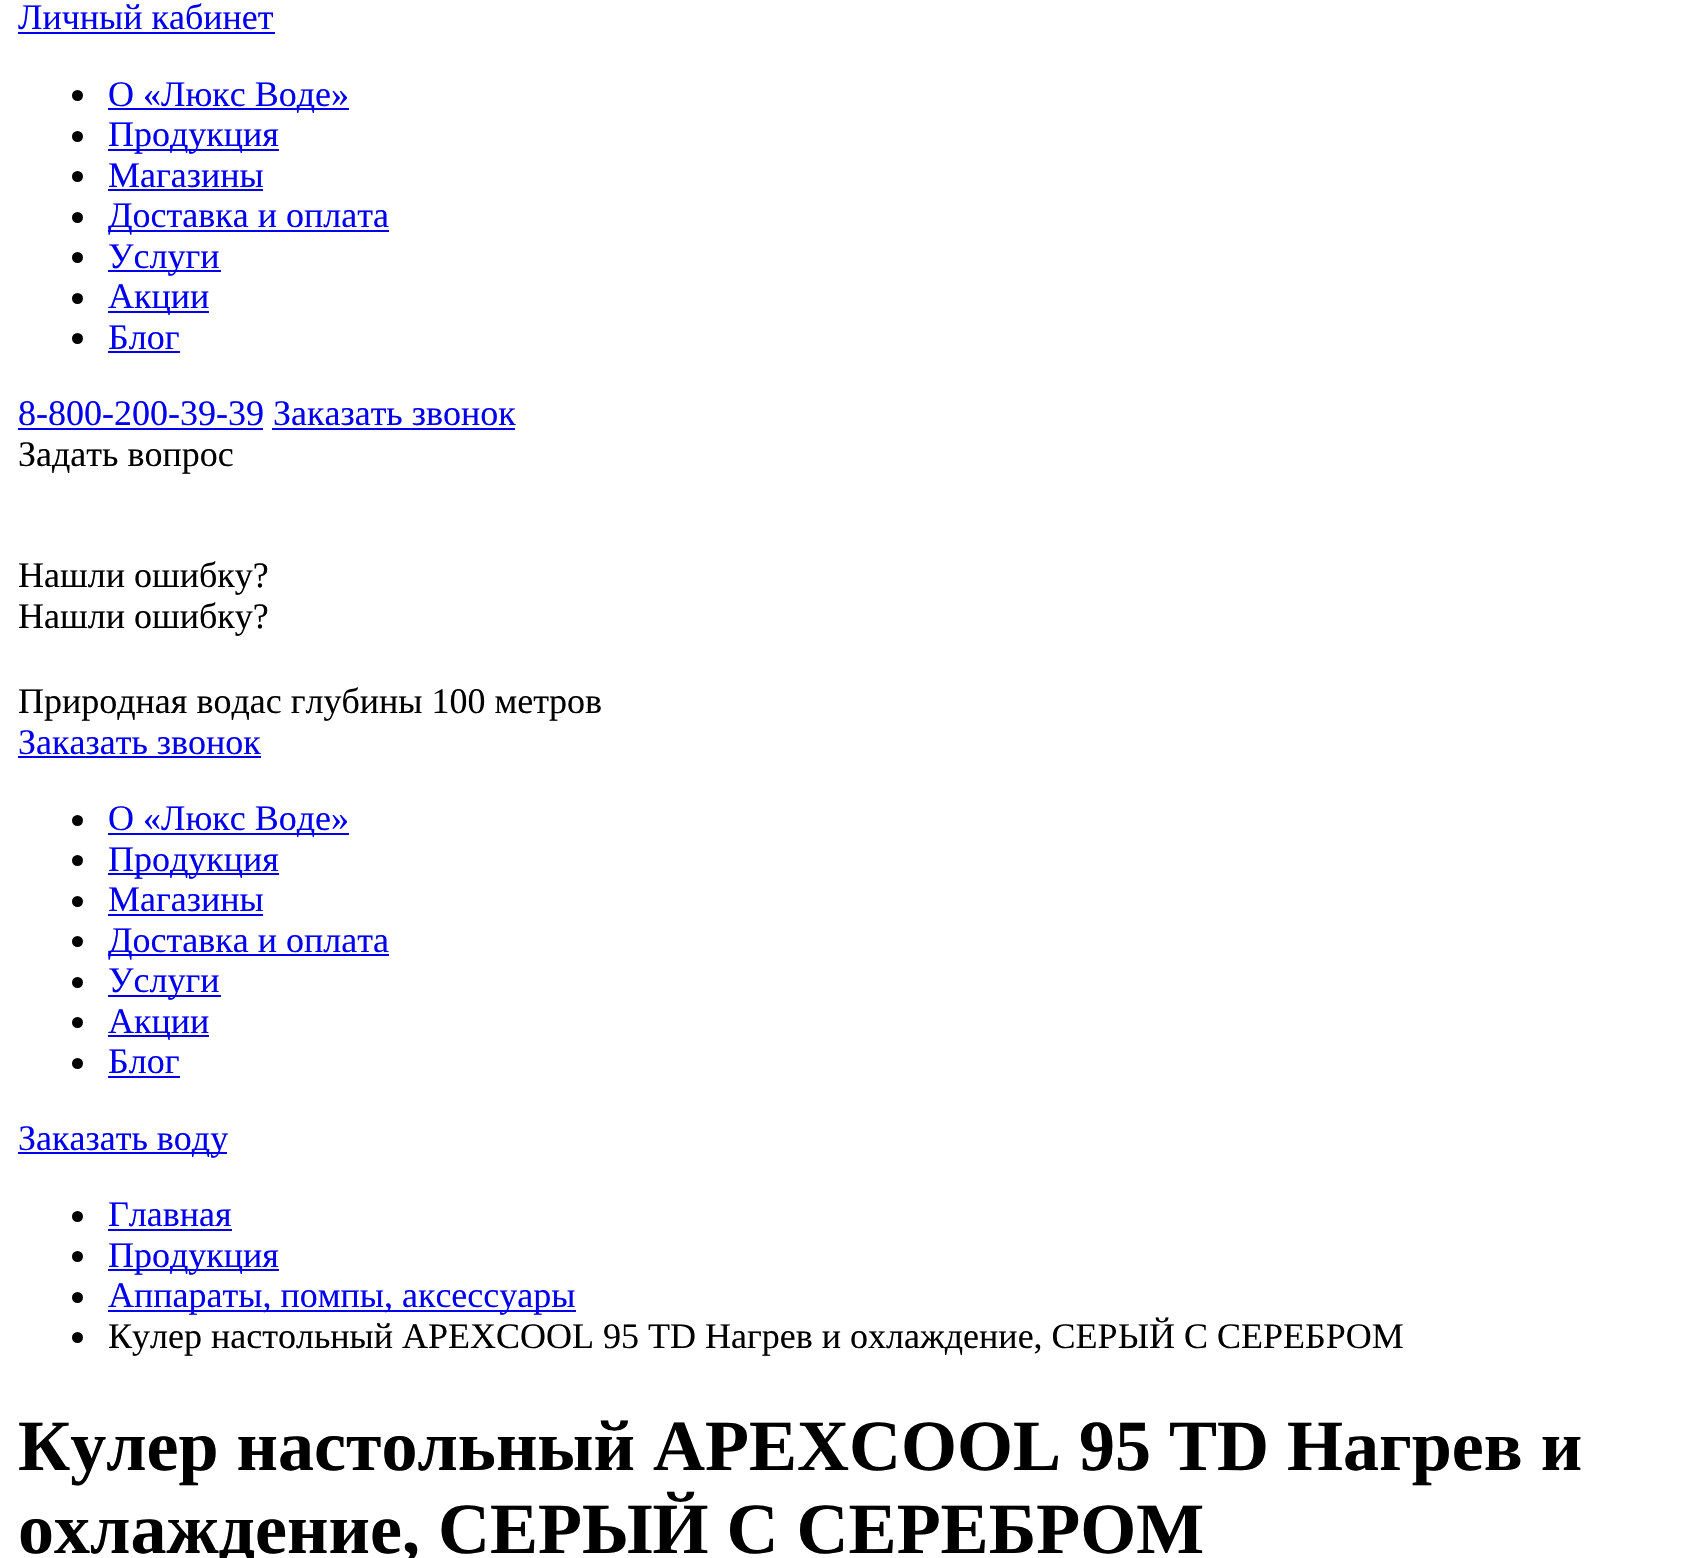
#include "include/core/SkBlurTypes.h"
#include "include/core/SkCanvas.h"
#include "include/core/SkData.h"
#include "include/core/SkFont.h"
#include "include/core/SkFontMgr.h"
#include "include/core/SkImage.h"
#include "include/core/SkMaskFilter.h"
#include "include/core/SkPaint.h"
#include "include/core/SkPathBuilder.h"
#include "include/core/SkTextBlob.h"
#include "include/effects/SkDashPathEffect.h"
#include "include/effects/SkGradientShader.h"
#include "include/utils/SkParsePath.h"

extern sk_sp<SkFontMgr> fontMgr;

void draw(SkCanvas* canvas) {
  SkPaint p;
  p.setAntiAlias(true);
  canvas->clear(SK_ColorWHITE);
  p.setColor(SkColorSetRGB(0, 0, 238));
  canvas->drawRect(SkRect::MakeLTRB(18, 32, 275, 34), p);
  p.setColor(SK_ColorBLACK);
  canvas->drawCircle(77.5f, 95.5f, 5.5f, p);
  p.setColor(SkColorSetRGB(0, 0, 238));
  canvas->drawRect(SkRect::MakeLTRB(108, 108, 349, 110), p);
  p.setColor(SK_ColorBLACK);
  canvas->drawCircle(77.5f, 136.5f, 5.5f, p);
  p.setColor(SkColorSetRGB(0, 0, 238));
  canvas->drawRect(SkRect::MakeLTRB(108, 149, 279, 151), p);
  p.setColor(SK_ColorBLACK);
  canvas->drawCircle(77.5f, 176.5f, 5.5f, p);
  p.setColor(SkColorSetRGB(0, 0, 238));
  canvas->drawRect(SkRect::MakeLTRB(108, 189, 263, 191), p);
  p.setColor(SK_ColorBLACK);
  canvas->drawCircle(77.5f, 217.5f, 5.5f, p);
  p.setColor(SkColorSetRGB(0, 0, 238));
  canvas->drawRect(SkRect::MakeLTRB(108, 230, 389, 232), p);
  p.setColor(SK_ColorBLACK);
  canvas->drawCircle(77.5f, 257.5f, 5.5f, p);
  p.setColor(SkColorSetRGB(0, 0, 238));
  canvas->drawRect(SkRect::MakeLTRB(108, 270, 221, 272), p);
  p.setColor(SK_ColorBLACK);
  canvas->drawCircle(77.5f, 298.5f, 5.5f, p);
  p.setColor(SkColorSetRGB(0, 0, 238));
  canvas->drawRect(SkRect::MakeLTRB(108, 311, 209, 313), p);
  p.setColor(SK_ColorBLACK);
  canvas->drawCircle(77.5f, 338.5f, 5.5f, p);
  p.setColor(SkColorSetRGB(0, 0, 238));
  canvas->drawRect(SkRect::MakeLTRB(108, 351, 180, 353), p);
  canvas->drawRect(SkRect::MakeLTRB(18, 428, 263, 430), p);
  canvas->drawRect(SkRect::MakeLTRB(272, 428, 515, 430), p);
  canvas->drawRect(SkRect::MakeLTRB(18, 756, 261, 758), p);
  p.setColor(SK_ColorBLACK);
  canvas->drawCircle(77.5f, 820.5f, 5.5f, p);
  p.setColor(SkColorSetRGB(0, 0, 238));
  canvas->drawRect(SkRect::MakeLTRB(108, 833, 349, 835), p);
  p.setColor(SK_ColorBLACK);
  canvas->drawCircle(77.5f, 860.5f, 5.5f, p);
  p.setColor(SkColorSetRGB(0, 0, 238));
  canvas->drawRect(SkRect::MakeLTRB(108, 873, 279, 875), p);
  p.setColor(SK_ColorBLACK);
  canvas->drawCircle(77.5f, 901.5f, 5.5f, p);
  p.setColor(SkColorSetRGB(0, 0, 238));
  canvas->drawRect(SkRect::MakeLTRB(108, 914, 263, 916), p);
  p.setColor(SK_ColorBLACK);
  canvas->drawCircle(77.5f, 941.5f, 5.5f, p);
  p.setColor(SkColorSetRGB(0, 0, 238));
  canvas->drawRect(SkRect::MakeLTRB(108, 954, 389, 956), p);
  p.setColor(SK_ColorBLACK);
  canvas->drawCircle(77.5f, 982.5f, 5.5f, p);
  p.setColor(SkColorSetRGB(0, 0, 238));
  canvas->drawRect(SkRect::MakeLTRB(108, 995, 221, 997), p);
  p.setColor(SK_ColorBLACK);
  canvas->drawCircle(77.5f, 1022.5f, 5.5f, p);
  p.setColor(SkColorSetRGB(0, 0, 238));
  canvas->drawRect(SkRect::MakeLTRB(108, 1035, 209, 1037), p);
  p.setColor(SK_ColorBLACK);
  canvas->drawCircle(77.5f, 1063.5f, 5.5f, p);
  p.setColor(SkColorSetRGB(0, 0, 238));
  canvas->drawRect(SkRect::MakeLTRB(108, 1076, 180, 1078), p);
  canvas->drawRect(SkRect::MakeLTRB(18, 1152, 227, 1154), p);
  p.setColor(SK_ColorBLACK);
  canvas->drawCircle(77.5f, 1216.5f, 5.5f, p);
  p.setColor(SkColorSetRGB(0, 0, 238));
  canvas->drawRect(SkRect::MakeLTRB(108, 1229, 232, 1231), p);
  p.setColor(SK_ColorBLACK);
  canvas->drawCircle(77.5f, 1256.5f, 5.5f, p);
  p.setColor(SkColorSetRGB(0, 0, 238));
  canvas->drawRect(SkRect::MakeLTRB(108, 1269, 279, 1271), p);
  p.setColor(SK_ColorBLACK);
  canvas->drawCircle(77.5f, 1297.5f, 5.5f, p);
  p.setColor(SkColorSetRGB(0, 0, 238));
  canvas->drawRect(SkRect::MakeLTRB(108, 1310, 576, 1312), p);
  p.setColor(SK_ColorBLACK);
  canvas->drawCircle(77.5f, 1337.5f, 5.5f, p);
  SkFont font1(fontMgr->matchFamilyStyle("Liberation Serif", SkFontStyle::Normal()), 36);
  font1.setSubpixel(true);
  p.setColor(SkColorSetRGB(0, 0, 238));
  canvas->drawString("Личный кабинет", 18, 29, font1, p);
  canvas->drawString("О «Люкс Воде»", 108, 106, font1, p);
  canvas->drawString("Продукция", 108, 146, font1, p);
  canvas->drawString("Магазины", 108, 187, font1, p);
  canvas->drawString("Доставка и оплата", 108, 227, font1, p);
  canvas->drawString("Услуги", 108, 268, font1, p);
  canvas->drawString("Акции", 108, 308, font1, p);
  canvas->drawString("Блог", 108, 349, font1, p);
  canvas->drawString("8-800-200-39-39 Заказать звонок", 18, 425, font1, p);
  p.setColor(SK_ColorBLACK);
  canvas->drawString("Задать вопрос", 18, 466, font1, p);
  canvas->drawString("Нашли ошибку?", 18, 587, font1, p);
  canvas->drawString("Нашли ошибку?", 18, 628, font1, p);
  canvas->drawString("Природная водас глубины 100 метров", 18, 713, font1, p);
  p.setColor(SkColorSetRGB(0, 0, 238));
  canvas->drawString("Заказать звонок", 18, 754, font1, p);
  canvas->drawString("О «Люкс Воде»", 108, 830, font1, p);
  canvas->drawString("Продукция", 108, 871, font1, p);
  canvas->drawString("Магазины", 108, 911, font1, p);
  canvas->drawString("Доставка и оплата", 108, 952, font1, p);
  canvas->drawString("Услуги", 108, 992, font1, p);
  canvas->drawString("Акции", 108, 1033, font1, p);
  canvas->drawString("Блог", 108, 1073, font1, p);
  canvas->drawString("Заказать воду", 18, 1150, font1, p);
  canvas->drawString("Главная", 108, 1226, font1, p);
  canvas->drawString("Продукция", 108, 1267, font1, p);
  canvas->drawString("Аппараты, помпы, аксессуары", 108, 1307, font1, p);
  p.setColor(SK_ColorBLACK);
  canvas->drawString("Кулер настольный APEXCOOL 95 TD Нагрев и охлаждение, СЕРЫЙ С СЕРЕБРОМ", 108, 1348, font1, p);
  SkFont font2(fontMgr->matchFamilyStyle("Liberation Serif", SkFontStyle::Bold()), 72);
  font2.setSubpixel(true);
  canvas->drawString("Кулер настольный APEXCOOL 95 TD Нагрев и", 18, 1470, font2, p);
  canvas->drawString("охлаждение, СЕРЫЙ С СЕРЕБРОМ", 18, 1553, font2, p);
}
